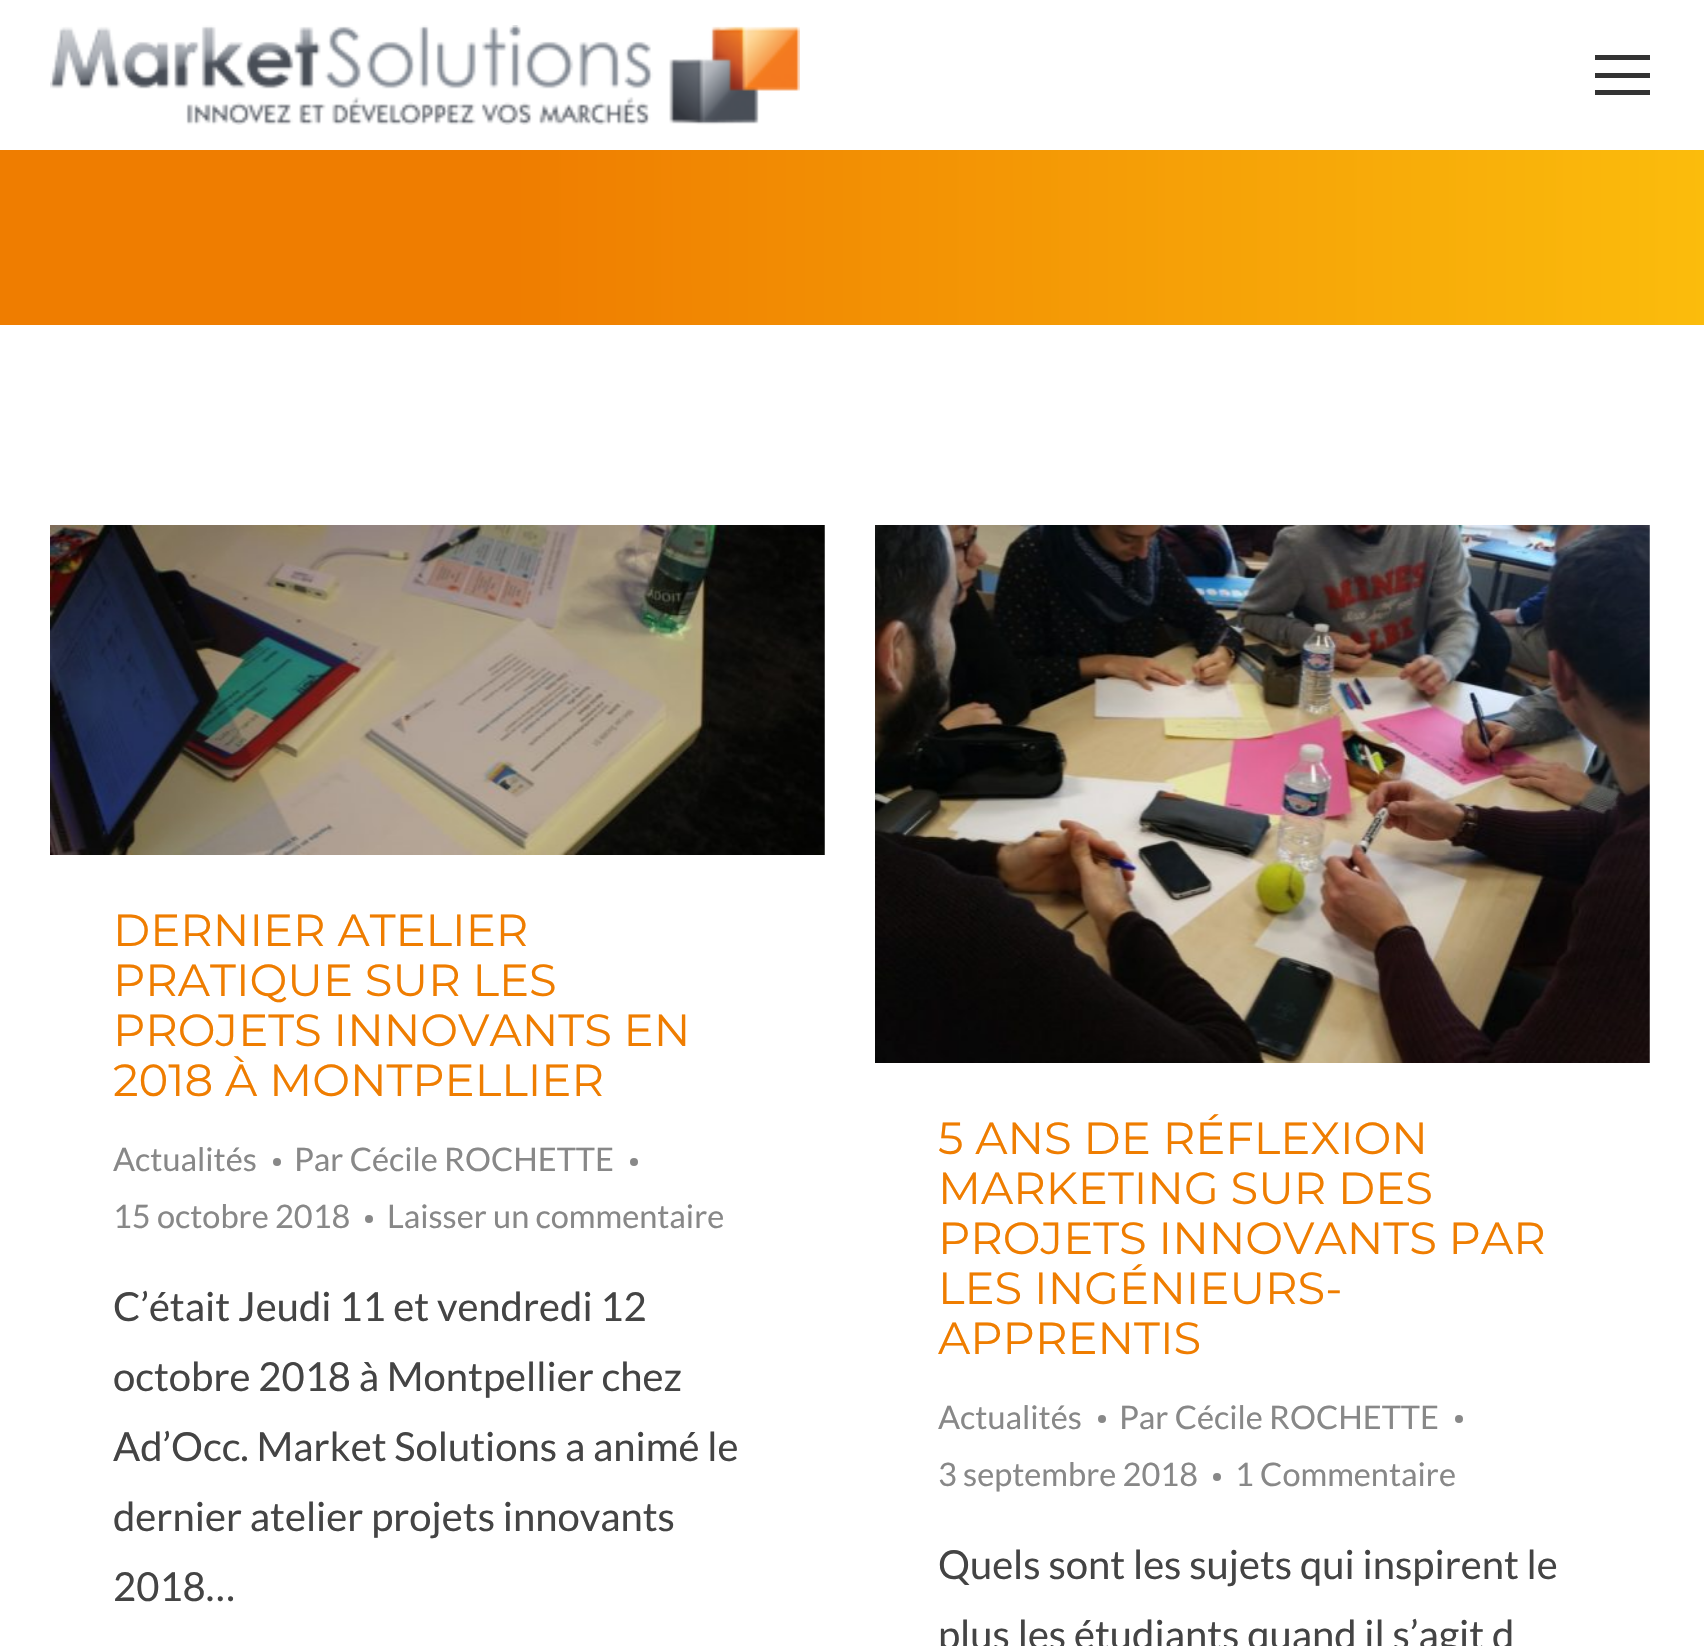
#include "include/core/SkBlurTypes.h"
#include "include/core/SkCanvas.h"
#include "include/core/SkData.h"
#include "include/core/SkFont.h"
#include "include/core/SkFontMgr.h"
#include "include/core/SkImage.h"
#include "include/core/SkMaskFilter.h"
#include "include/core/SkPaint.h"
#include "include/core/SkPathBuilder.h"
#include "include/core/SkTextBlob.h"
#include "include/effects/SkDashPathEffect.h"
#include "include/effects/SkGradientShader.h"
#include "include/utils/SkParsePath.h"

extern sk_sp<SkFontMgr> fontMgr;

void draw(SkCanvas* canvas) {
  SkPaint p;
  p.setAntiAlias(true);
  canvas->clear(SK_ColorWHITE);
  canvas->drawImageRect(SkImages::DeferredFromEncodedData(SkData::MakeFromFileName("images/1.png")), SkRect::MakeLTRB(50, 25, 800, 125), SkSamplingOptions());
  p.setColor(SkColorSetRGB(51, 51, 51));
  canvas->drawRect(SkRect::MakeLTRB(1595, 55, 1650, 60), p);
  canvas->drawRect(SkRect::MakeLTRB(1595, 73, 1650, 78), p);
  canvas->drawRect(SkRect::MakeLTRB(1595, 90, 1650, 95), p);
  {
    const SkColor colors[] = {SkColorSetRGB(239, 125, 0), SkColorSetRGB(251, 188, 12)};
    const float stops[] = {0.3f, 1};
    const SkPoint ends[] = {{0, 238}, {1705, 237}};
    p.setShader(SkGradientShader::MakeLinear(ends, colors, stops, 2, SkTileMode::kClamp));
    p.setAlpha(255);
  }
  canvas->drawRect(SkRect::MakeLTRB(0, 150, 1704, 325), p);
  canvas->drawImageRect(SkImages::DeferredFromEncodedData(SkData::MakeFromFileName("images/2.png")), SkRect::MakeLTRB(50, 525, 825, 855), SkSamplingOptions());
  p.setShader(nullptr);
  p.setColor(SkColorSetRGB(136, 136, 136));
  canvas->drawCircle(277, 1162, 4, p);
  canvas->drawCircle(634, 1162, 4, p);
  canvas->drawCircle(369, 1219, 4, p);
  canvas->drawImageRect(SkImages::DeferredFromEncodedData(SkData::MakeFromFileName("images/3.png")), SkRect::MakeLTRB(875, 525, 1650, 1063), SkSamplingOptions());
  canvas->drawCircle(1102, 1419, 4, p);
  canvas->drawCircle(1459, 1419, 4, p);
  canvas->drawCircle(1217, 1477, 4, p);
  SkFont font1(fontMgr->matchFamilyStyle("Montserrat", SkFontStyle::Normal()), 45);
  font1.setSubpixel(true);
  p.setColor(SkColorSetRGB(239, 125, 0));
  canvas->drawString("DERNIER ATELIER", 113, 946, font1, p);
  canvas->drawString("PRATIQUE SUR LES", 113, 996, font1, p);
  canvas->drawString("PROJETS INNOVANTS EN", 113, 1046, font1, p);
  canvas->drawString("2018 À MONTPELLIER", 113, 1096, font1, p);
  SkFont font2(fontMgr->matchFamilyStyle("Lato", SkFontStyle::Normal()), 32.5f);
  font2.setSubpixel(true);
  p.setColor(SkColorSetRGB(136, 136, 136));
  canvas->drawString("Actualités", 113, 1171, font2, p);
  canvas->drawString("Par Cécile ROCHETTE", 294, 1171, font2, p);
  canvas->drawString("15 octobre 2018", 113, 1228, font2, p);
  canvas->drawString("Laisser un commentaire", 387, 1228, font2, p);
  SkFont font3(fontMgr->matchFamilyStyle("Lato", SkFontStyle::Normal()), 40);
  font3.setSubpixel(true);
  p.setColor(SkColorSetRGB(68, 68, 68));
  canvas->drawString("C’était Jeudi 11 et vendredi 12", 113, 1321, font3, p);
  canvas->drawString("octobre 2018 à Montpellier chez", 113, 1391, font3, p);
  canvas->drawString("Ad’Occ. Market Solutions a animé le", 113, 1461, font3, p);
  canvas->drawString("dernier atelier projets innovants", 113, 1531, font3, p);
  canvas->drawString("2018…", 113, 1601, font3, p);
  p.setColor(SkColorSetRGB(239, 125, 0));
  canvas->drawString("5 ANS DE RÉFLEXION", 938, 1154, font1, p);
  canvas->drawString("MARKETING SUR DES", 938, 1204, font1, p);
  canvas->drawString("PROJETS INNOVANTS PAR", 938, 1254, font1, p);
  canvas->drawString("LES INGÉNIEURS-", 938, 1304, font1, p);
  canvas->drawString("APPRENTIS", 938, 1354, font1, p);
  p.setColor(SkColorSetRGB(136, 136, 136));
  canvas->drawString("Actualités", 938, 1429, font2, p);
  canvas->drawString("Par Cécile ROCHETTE", 1119, 1429, font2, p);
  canvas->drawString("3 septembre 2018", 938, 1486, font2, p);
  canvas->drawString("1 Commentaire", 1235, 1486, font2, p);
  p.setColor(SkColorSetRGB(68, 68, 68));
  canvas->drawString("Quels sont les sujets qui inspirent le", 938, 1579, font3, p);
  canvas->drawString("plus les étudiants quand il s’agit d", 938, 1649, font3, p);
}
